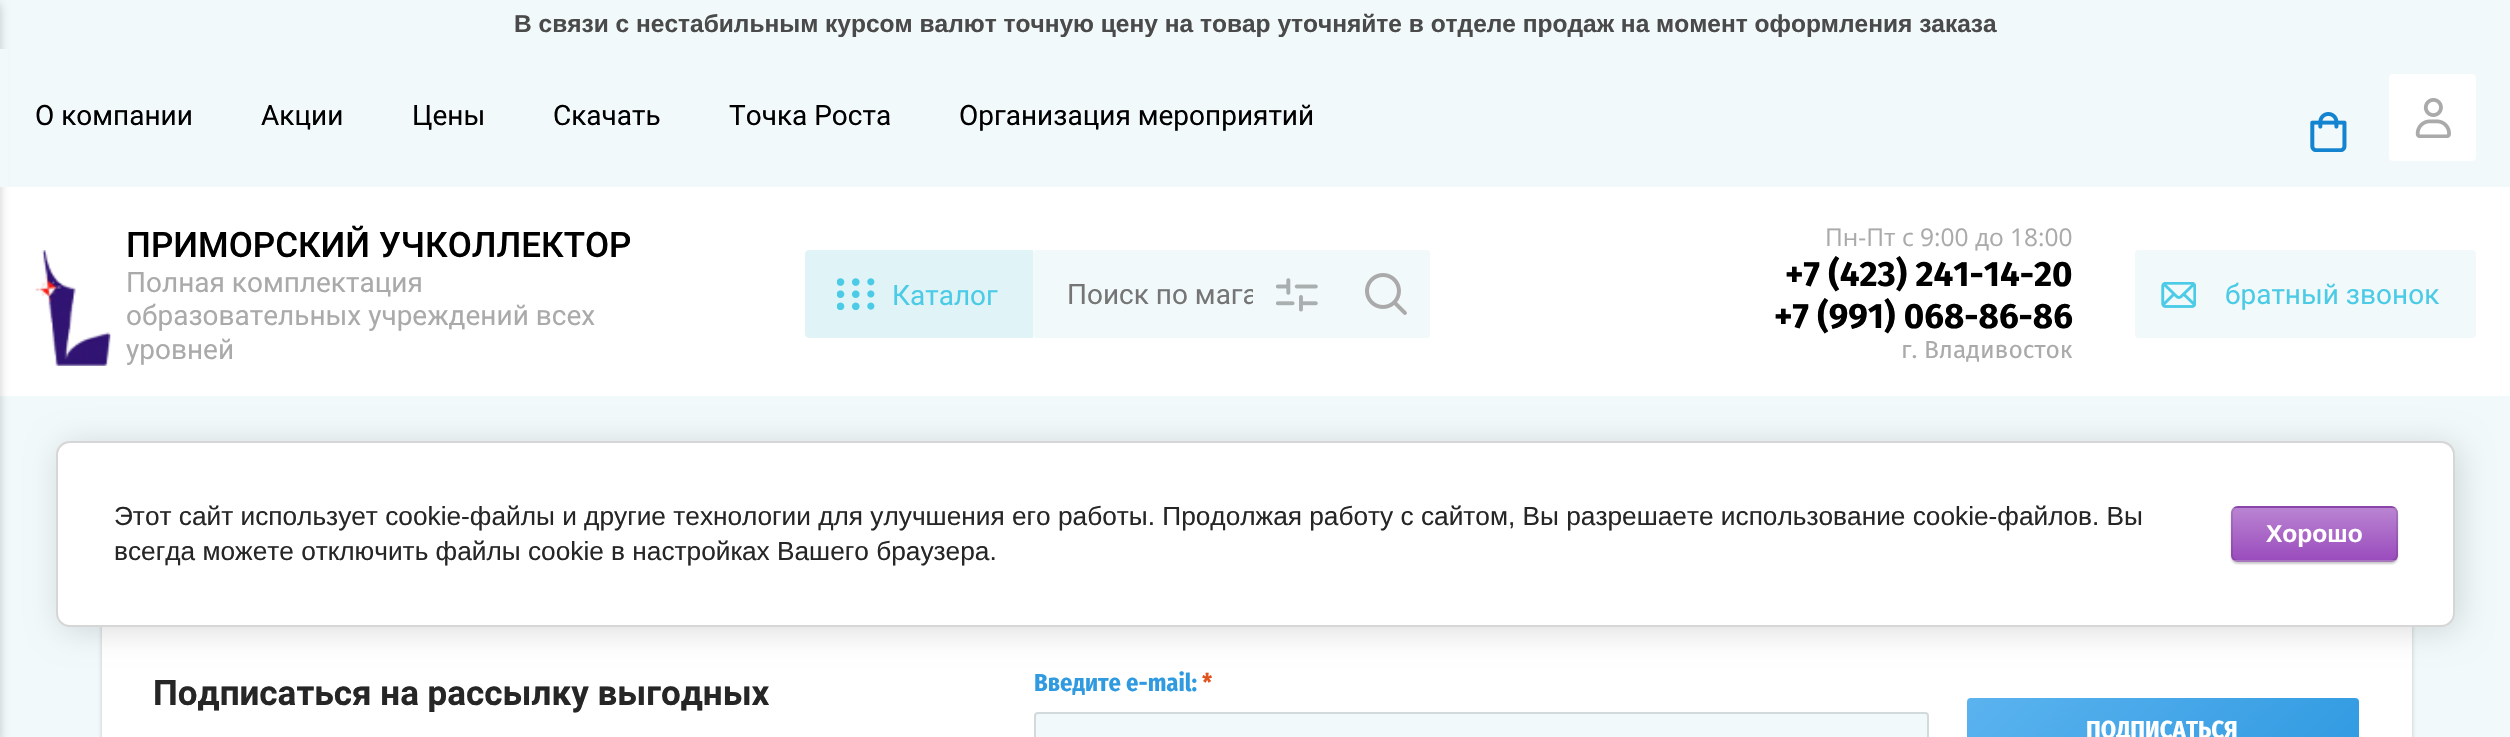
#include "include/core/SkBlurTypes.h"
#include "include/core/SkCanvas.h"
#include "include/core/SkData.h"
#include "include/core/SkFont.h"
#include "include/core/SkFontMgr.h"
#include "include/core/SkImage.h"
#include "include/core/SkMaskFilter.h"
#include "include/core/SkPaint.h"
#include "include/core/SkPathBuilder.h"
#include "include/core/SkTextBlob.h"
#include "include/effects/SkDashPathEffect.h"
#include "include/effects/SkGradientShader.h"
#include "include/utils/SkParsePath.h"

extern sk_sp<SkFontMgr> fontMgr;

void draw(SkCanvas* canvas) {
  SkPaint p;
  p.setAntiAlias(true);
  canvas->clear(SkColorSetRGB(241, 249, 250));
  p.setColor(SK_ColorWHITE);
  canvas->drawRect(SkRect::MakeLTRB(0, 187, 2510, 396), p);
  p.setColor(SkColorSetARGB(51, 0, 0, 0));
  p.setMaskFilter(SkMaskFilter::MakeBlur(kNormal_SkBlurStyle, 5));
  canvas->drawRect(SkRect::MakeLTRB(-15, 4, 0, 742), p);
  p.setMaskFilter(nullptr);
  p.setColor(SkColorSetRGB(241, 249, 250));
  canvas->drawRect(SkRect::MakeLTRB(0, 49, 8, 187), p);
  canvas->drawImageRect(SkImages::DeferredFromEncodedData(SkData::MakeFromFileName("images/1.png")), SkRect::MakeLTRB(2310, 112, 2347, 152), SkSamplingOptions());
  p.setColor(SK_ColorWHITE);
  canvas->drawRoundRect(SkRect::MakeLTRB(2389, 74, 2476, 161), 4, 4, p);
  canvas->drawImageRect(SkImages::DeferredFromEncodedData(SkData::MakeFromFileName("images/2.png")), SkRect::MakeLTRB(2415, 98, 2451, 138), SkSamplingOptions());
  canvas->drawImageRect(SkImages::DeferredFromEncodedData(SkData::MakeFromFileName("images/3.png")), SkRect::MakeLTRB(35, 250, 111, 366), SkSamplingOptions());
  p.setColor(SkColorSetRGB(224, 244, 248));
  canvas->drawPath(SkPathBuilder().moveTo(809, 250).lineTo(1033, 250).lineTo(1033, 338).lineTo(809, 338).cubicTo(807, 338, 805, 336, 805, 334).lineTo(805, 254).cubicTo(805, 252, 807, 250, 809, 250).close().detach(), p);
  canvas->drawImageRect(SkImages::DeferredFromEncodedData(SkData::MakeFromFileName("images/4.png")), SkRect::MakeLTRB(837, 278, 875, 310), SkSamplingOptions());
  p.setColor(SkColorSetRGB(241, 249, 250));
  canvas->drawRoundRect(SkRect::MakeLTRB(1033, 250, 1430, 338), 4, 4, p);
  canvas->drawRoundRect(SkRect::MakeLTRB(1342, 250, 1430, 338), 4, 4, p);
  canvas->drawImageRect(SkImages::DeferredFromEncodedData(SkData::MakeFromFileName("images/6.png")), SkRect::MakeLTRB(1365, 273, 1407, 315), SkSamplingOptions());
  canvas->drawRoundRect(SkRect::MakeLTRB(2170, 250, 2476, 338), 4, 4, p);
  canvas->drawRoundRect(SkRect::MakeLTRB(2135, 250, 2223, 338), 4, 4, p);
  canvas->drawImageRect(SkImages::DeferredFromEncodedData(SkData::MakeFromFileName("images/7.png")), SkRect::MakeLTRB(2161, 282, 2196, 308), SkSamplingOptions());
  p.setColor(SkColorSetARGB(51, 0, 0, 0));
  p.setMaskFilter(SkMaskFilter::MakeBlur(kNormal_SkBlurStyle, 2));
  canvas->drawRoundRect(SkRect::MakeLTRB(102, 609, 2412, 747), 4, 4, p);
  p.setMaskFilter(nullptr);
  p.setColor(SK_ColorWHITE);
  canvas->drawRect(SkRect::MakeLTRB(102, 627, 2412, 737), p);
  p.setColor(SkColorSetRGB(241, 249, 250));
  canvas->drawRoundRect(SkRect::MakeLTRB(1034, 712, 1929, 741), 4, 4, p);
  p.setStyle(SkPaint::kStroke_Style);
  p.setStrokeWidth(2);
  p.setColor(SkColorSetARGB(31, 0, 0, 0));
  canvas->drawRoundRect(SkRect::MakeLTRB(1035, 713, 1928, 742), 3, 3, p);
  p.setStyle(SkPaint::kFill_Style);
  {
    const SkColor colors[] = {SkColorSetRGB(91, 179, 239), SkColorSetRGB(48, 154, 225)};
    const float stops[] = {0, 1};
    const SkPoint ends[] = {{2049, 616}, {2277, 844}};
    p.setShader(SkGradientShader::MakeLinear(ends, colors, stops, 2, SkTileMode::kClamp));
    p.setAlpha(255);
  }
  canvas->drawRoundRect(SkRect::MakeLTRB(1967, 698, 2359, 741), 4, 4, p);
  p.setShader(nullptr);
  p.setColor(SkColorSetARGB(36, 0, 0, 0));
  p.setMaskFilter(SkMaskFilter::MakeBlur(kNormal_SkBlurStyle, 16));
  canvas->drawRoundRect(SkRect::MakeLTRB(60, 445, 2459, 630), 14, 14, p);
  p.setMaskFilter(nullptr);
  p.setColor(SK_ColorWHITE);
  canvas->drawRoundRect(SkRect::MakeLTRB(57, 442, 2454, 626), 13, 13, p);
  p.setStyle(SkPaint::kStroke_Style);
  p.setColor(SkColorSetRGB(214, 214, 214));
  canvas->drawRoundRect(SkRect::MakeLTRB(57, 442, 2454, 626), 13, 13, p);
  p.setStyle(SkPaint::kFill_Style);
  p.setColor(SkColorSetARGB(51, 0, 0, 0));
  p.setMaskFilter(SkMaskFilter::MakeBlur(kNormal_SkBlurStyle, 1));
  canvas->drawRoundRect(SkRect::MakeLTRB(2231, 508, 2398, 564), 7, 7, p);
  p.setMaskFilter(nullptr);
  canvas->save();
  canvas->clipPath(SkPathBuilder().moveTo(2238, 506).lineTo(2391, 506).cubicTo(2395, 506, 2398, 509, 2398, 513).lineTo(2398, 555).cubicTo(2398, 559, 2395, 562, 2391, 562).lineTo(2238, 562).cubicTo(2234, 562, 2231, 559, 2231, 555).lineTo(2231, 513).cubicTo(2231, 509, 2234, 506, 2238, 506).close().detach(), true);
  {
    const SkColor colors[] = {SkColorSetRGB(186, 132, 210), SkColorSetRGB(154, 76, 189)};
    const float stops[] = {0, 1};
    const SkPoint ends[] = {{2314, 455}, {2314, 508}};
    p.setShader(SkGradientShader::MakeLinear(ends, colors, stops, 2, SkTileMode::kClamp));
    p.setAlpha(255);
  }
  canvas->drawRect(SkRect::MakeLTRB(2231, 506, 2398, 508), p);
  {
    const SkColor colors[] = {SkColorSetRGB(186, 132, 210), SkColorSetRGB(154, 76, 189)};
    const float stops[] = {0, 1};
    const SkPoint ends[] = {{2314, 508}, {2314, 560}};
    p.setShader(SkGradientShader::MakeLinear(ends, colors, stops, 2, SkTileMode::kClamp));
    p.setAlpha(255);
  }
  canvas->drawRect(SkRect::MakeLTRB(2231, 508, 2398, 560), p);
  {
    const SkColor colors[] = {SkColorSetRGB(186, 132, 210), SkColorSetRGB(154, 76, 189)};
    const float stops[] = {0, 1};
    const SkPoint ends[] = {{2314, 560}, {2314, 613}};
    p.setShader(SkGradientShader::MakeLinear(ends, colors, stops, 2, SkTileMode::kClamp));
    p.setAlpha(255);
  }
  canvas->drawRect(SkRect::MakeLTRB(2231, 560, 2398, 562), p);
  canvas->restore();
  p.setStyle(SkPaint::kStroke_Style);
  p.setShader(nullptr);
  p.setColor(SkColorSetARGB(26, 0, 0, 0));
  canvas->drawRoundRect(SkRect::MakeLTRB(2232, 507, 2397, 561), 6, 6, p);
  SkFont font1(fontMgr->matchFamilyStyle("Liberation Sans", SkFontStyle::Bold()), 24.5f);
  font1.setSubpixel(true);
  p.setStyle(SkPaint::kFill_Style);
  p.setColor(SkColorSetRGB(74, 74, 74));
  canvas->drawString("В связи с нестабильным курсом валют точную цену на товар уточняйте в отделе продаж на момент оформления заказа", 514, 32, font1, p);
  SkFont font2(fontMgr->matchFamilyStyle("Roboto", SkFontStyle::Normal()), 28);
  font2.setSubpixel(true);
  p.setColor(SK_ColorBLACK);
  canvas->drawString("О компании", 35, 125, font2, p);
  canvas->drawString("Акции", 261, 125, font2, p);
  canvas->drawString("Цены", 412, 125, font2, p);
  canvas->drawString("Скачать", 553, 125, font2, p);
  canvas->drawString("Точка Роста", 729, 125, font2, p);
  canvas->drawString("Организация мероприятий", 959, 125, font2, p);
  SkFont font3(fontMgr->matchFamilyStyle("Roboto", SkFontStyle(500, SkFontStyle::kNormal_Width, SkFontStyle::kUpright_Slant)), 35);
  font3.setSubpixel(true);
  canvas->drawString("ПРИМОРСКИЙ УЧКОЛЛЕКТОР", 126, 257, font3, p);
  p.setColor(SkColorSetRGB(170, 170, 170));
  canvas->drawString("Полная комплектация", 126, 292, font2, p);
  canvas->drawString("образовательных учреждений всех", 126, 325, font2, p);
  canvas->drawString("уровней", 126, 359, font2, p);
  p.setColor(SkColorSetRGB(76, 203, 230));
  canvas->drawString("Каталог", 892, 305, font2, p);
  p.setColor(SkColorSetRGB(117, 117, 117));
  canvas->drawString("Поиск по мага", 1067, 304, font2, p);
  p.setColor(SkColorSetRGB(241, 249, 250));
  canvas->drawRoundRect(SkRect::MakeLTRB(1253, 250, 1341, 338), 4, 4, p);
  canvas->drawImageRect(SkImages::DeferredFromEncodedData(SkData::MakeFromFileName("images/5.png")), SkRect::MakeLTRB(1276, 278, 1318, 312), SkSamplingOptions());
  SkFont font4(fontMgr->matchFamilyStyle("Open Sans", SkFontStyle::Normal()), 24.5f);
  font4.setSubpixel(true);
  p.setColor(SkColorSetRGB(170, 170, 170));
  canvas->drawString("Пн-Пт с 9:00 до 18:00", 1825, 246, font4, p);
  SkFont font5(fontMgr->matchFamilyStyle("Fira Sans", SkFontStyle::Bold()), 35);
  font5.setSubpixel(true);
  p.setColor(SK_ColorBLACK);
  canvas->drawString("+7 (423) 241-14-20", 1785, 286, font5, p);
  canvas->drawString("+7 (991) 068-86-86", 1774, 328, font5, p);
  SkFont font6(fontMgr->matchFamilyStyle("Fira Sans", SkFontStyle::Normal()), 24.5f);
  font6.setSubpixel(true);
  p.setColor(SkColorSetRGB(170, 170, 170));
  canvas->drawString("г. Владивосток", 1901, 358, font6, p);
  p.setColor(SkColorSetRGB(76, 203, 230));
  canvas->drawString("братный звонок", 2225, 304, font2, p);
  SkFont font7(fontMgr->matchFamilyStyle("Roboto", SkFontStyle::Bold()), 35);
  font7.setSubpixel(true);
  p.setColor(SkColorSetRGB(38, 38, 38));
  canvas->drawString("Подписаться на рассылку выгодных", 153, 705, font7, p);
  SkFont font8(fontMgr->matchFamilyStyle("Fira Sans Condensed", SkFontStyle::Bold()), 24.5f);
  font8.setSubpixel(true);
  p.setColor(SkColorSetRGB(48, 154, 225));
  canvas->drawString("Введите e-mail:", 1034, 691, font8, p);
  p.setColor(SkColorSetRGB(224, 83, 28));
  canvas->drawString("*", 1202, 691, font8, p);
  p.setColor(SK_ColorWHITE);
  canvas->drawString("ПОДПИСАТЬСЯ", 2086, 738, font8, p);
  SkFont font9(fontMgr->matchFamilyStyle("Liberation Sans", SkFontStyle::Normal()), 26.25f);
  font9.setSubpixel(true);
  p.setColor(SkColorSetRGB(38, 38, 38));
  canvas->drawString("Этот сайт использует cookie-файлы и другие технологии для улучшения его работы. Продолжая работу с сайтом, Вы разрешаете использование cookie-файлов. Вы", 114, 525, font9, p);
  canvas->drawString("всегда можете отключить файлы cookie в настройках Вашего браузера.", 114, 560, font9, p);
  p.setColor(SK_ColorWHITE);
  canvas->drawString("Хорошо", 2266, 542, font1, p);
}
